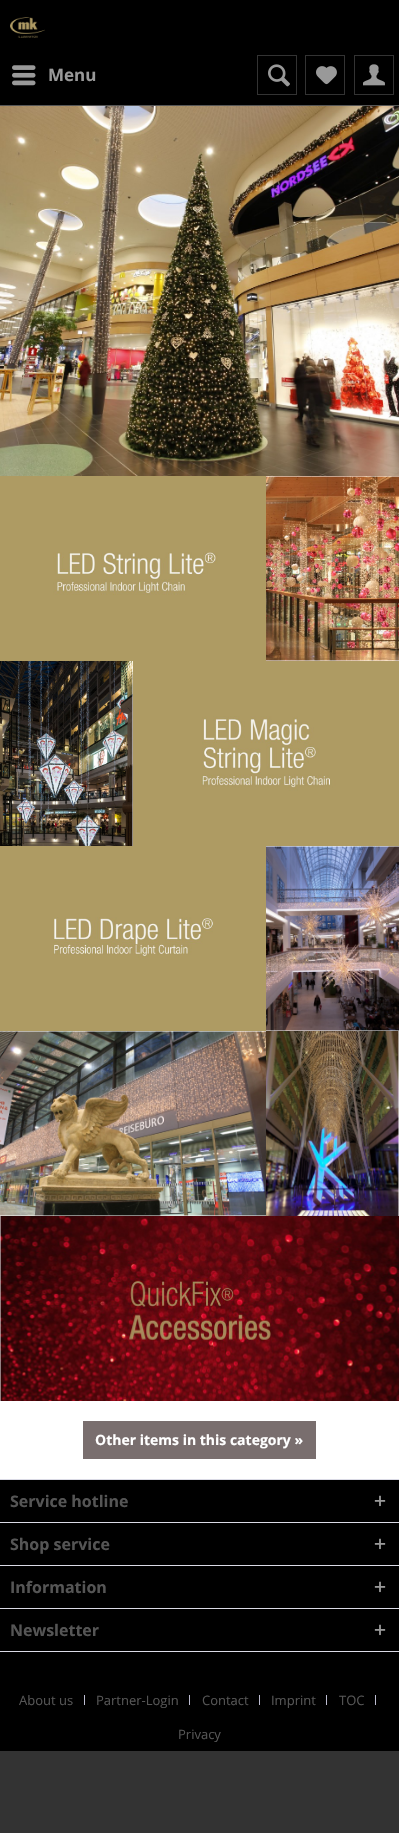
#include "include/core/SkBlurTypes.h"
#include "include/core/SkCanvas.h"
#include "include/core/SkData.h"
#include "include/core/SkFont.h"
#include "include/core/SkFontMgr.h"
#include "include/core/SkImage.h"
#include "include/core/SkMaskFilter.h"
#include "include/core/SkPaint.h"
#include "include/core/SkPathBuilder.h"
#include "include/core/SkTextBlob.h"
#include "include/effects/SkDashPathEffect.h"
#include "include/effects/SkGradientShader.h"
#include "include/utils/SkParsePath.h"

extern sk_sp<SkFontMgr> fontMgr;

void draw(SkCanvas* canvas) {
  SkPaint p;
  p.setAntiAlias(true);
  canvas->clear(SkColorSetRGB(51, 51, 51));
  p.setColor(SK_ColorBLACK);
  canvas->drawRect(SkRect::MakeLTRB(0, 0, 399, 105), p);
  p.setColor(SkColorSetRGB(85, 85, 85));
  canvas->drawRect(SkRect::MakeLTRB(0, 105, 399, 106), p);
  canvas->drawImageRect(SkImages::DeferredFromEncodedData(SkData::MakeFromFileName("images/1.png")), SkRect::MakeLTRB(10, 17, 45, 38), SkSamplingOptions());
  canvas->drawImageRect(SkImages::DeferredFromEncodedData(SkData::MakeFromFileName("images/2.png")), SkRect::MakeLTRB(12, 65, 36, 86), SkSamplingOptions());
  p.setStyle(SkPaint::kStroke_Style);
  p.setStrokeWidth(1);
  p.setColor(SkColorSetRGB(51, 51, 51));
  canvas->drawRect(SkRect::MakeLTRB(257.5f, 55.5f, 296.5f, 94.5f), p);
  canvas->drawImageRect(SkImages::DeferredFromEncodedData(SkData::MakeFromFileName("images/3.png")), SkRect::MakeLTRB(268, 64, 290, 87), SkSamplingOptions());
  canvas->drawRect(SkRect::MakeLTRB(305.5f, 55.5f, 344.5f, 94.5f), p);
  canvas->drawImageRect(SkImages::DeferredFromEncodedData(SkData::MakeFromFileName("images/4.png")), SkRect::MakeLTRB(316, 66, 337, 85), SkSamplingOptions());
  canvas->drawRect(SkRect::MakeLTRB(354.5f, 55.5f, 393.5f, 94.5f), p);
  canvas->drawImageRect(SkImages::DeferredFromEncodedData(SkData::MakeFromFileName("images/5.png")), SkRect::MakeLTRB(363, 64, 385, 86), SkSamplingOptions());
  p.setStyle(SkPaint::kFill_Style);
  p.setColor(SK_ColorWHITE);
  canvas->drawRect(SkRect::MakeLTRB(0, 476, 399, 1479), p);
  canvas->drawImageRect(SkImages::DeferredFromEncodedData(SkData::MakeFromFileName("images/6.png")), SkRect::MakeLTRB(0, 106, 399, 476), SkSamplingOptions());
  canvas->drawImageRect(SkImages::DeferredFromEncodedData(SkData::MakeFromFileName("images/7.png")), SkRect::MakeLTRB(0, 476, 266, 661), SkSamplingOptions());
  canvas->drawImageRect(SkImages::DeferredFromEncodedData(SkData::MakeFromFileName("images/8.png")), SkRect::MakeLTRB(266, 476, 399, 661), SkSamplingOptions());
  canvas->drawImageRect(SkImages::DeferredFromEncodedData(SkData::MakeFromFileName("images/9.png")), SkRect::MakeLTRB(0, 661, 133, 846), SkSamplingOptions());
  canvas->drawImageRect(SkImages::DeferredFromEncodedData(SkData::MakeFromFileName("images/10.png")), SkRect::MakeLTRB(133, 661, 399, 846), SkSamplingOptions());
  canvas->drawImageRect(SkImages::DeferredFromEncodedData(SkData::MakeFromFileName("images/11.png")), SkRect::MakeLTRB(0, 846, 266, 1031), SkSamplingOptions());
  canvas->drawImageRect(SkImages::DeferredFromEncodedData(SkData::MakeFromFileName("images/12.png")), SkRect::MakeLTRB(266, 846, 399, 1031), SkSamplingOptions());
  canvas->drawImageRect(SkImages::DeferredFromEncodedData(SkData::MakeFromFileName("images/13.png")), SkRect::MakeLTRB(0, 1031, 266, 1216), SkSamplingOptions());
  canvas->drawImageRect(SkImages::DeferredFromEncodedData(SkData::MakeFromFileName("images/14.png")), SkRect::MakeLTRB(266, 1031, 399, 1216), SkSamplingOptions());
  canvas->drawImageRect(SkImages::DeferredFromEncodedData(SkData::MakeFromFileName("images/15.png")), SkRect::MakeLTRB(0, 1216, 399, 1401), SkSamplingOptions());
  p.setColor(SkColorSetRGB(121, 110, 110));
  canvas->drawRect(SkRect::MakeLTRB(83, 1421, 316, 1459), p);
  p.setColor(SK_ColorBLACK);
  canvas->drawRect(SkRect::MakeLTRB(0, 1480, 399, 1751), p);
  p.setColor(SkColorSetRGB(218, 218, 229));
  canvas->drawRect(SkRect::MakeLTRB(0, 1479, 399, 1480), p);
  canvas->drawImageRect(SkImages::DeferredFromEncodedData(SkData::MakeFromFileName("images/16.png")), SkRect::MakeLTRB(374, 1495, 386, 1507), SkSamplingOptions());
  canvas->drawRect(SkRect::MakeLTRB(0, 1522, 399, 1523), p);
  canvas->drawImageRect(SkImages::DeferredFromEncodedData(SkData::MakeFromFileName("images/16.png")), SkRect::MakeLTRB(374, 1538, 386, 1550), SkSamplingOptions());
  canvas->drawRect(SkRect::MakeLTRB(0, 1565, 399, 1566), p);
  canvas->drawImageRect(SkImages::DeferredFromEncodedData(SkData::MakeFromFileName("images/16.png")), SkRect::MakeLTRB(374, 1581, 386, 1593), SkSamplingOptions());
  canvas->drawRect(SkRect::MakeLTRB(0, 1608, 399, 1609), p);
  canvas->drawRect(SkRect::MakeLTRB(0, 1651, 399, 1652), p);
  canvas->drawImageRect(SkImages::DeferredFromEncodedData(SkData::MakeFromFileName("images/16.png")), SkRect::MakeLTRB(374, 1624, 386, 1636), SkSamplingOptions());
  p.setColor(SkColorSetRGB(188, 188, 208));
  canvas->drawRect(SkRect::MakeLTRB(84, 1695, 85, 1705), p);
  canvas->drawRect(SkRect::MakeLTRB(189, 1695, 190, 1705), p);
  canvas->drawRect(SkRect::MakeLTRB(259, 1695, 260, 1705), p);
  canvas->drawRect(SkRect::MakeLTRB(326, 1695, 327, 1705), p);
  canvas->drawRect(SkRect::MakeLTRB(375, 1695, 376, 1705), p);
  SkFont font1(fontMgr->matchFamilyStyle("Open Sans", SkFontStyle::Bold()), 17);
  font1.setSubpixel(true);
  p.setColor(SkColorSetRGB(153, 153, 153));
  canvas->drawString("Menu", 48, 81, font1, p);
  SkFont font2(fontMgr->matchFamilyStyle("Open Sans", SkFontStyle::Bold()), 14);
  font2.setSubpixel(true);
  p.setColor(SK_ColorWHITE);
  canvas->drawString("Other items in this category »", 95, 1445, font2, p);
  SkFont font3(fontMgr->matchFamilyStyle("Open Sans", SkFontStyle::Bold()), 16);
  font3.setSubpixel(true);
  p.setColor(SkColorSetRGB(85, 85, 85));
  canvas->drawString("Service hotline", 10, 1507, font3, p);
  canvas->drawString("Shop service", 10, 1550, font3, p);
  canvas->drawString("Information", 10, 1593, font3, p);
  canvas->drawString("Newsletter", 10, 1636, font3, p);
  SkFont font4(fontMgr->matchFamilyStyle("Open Sans", SkFontStyle::Normal()), 13);
  font4.setSubpixel(true);
  canvas->drawString("About us", 19, 1705, font4, p);
  canvas->drawString("Partner-Login", 96, 1705, font4, p);
  canvas->drawString("Contact", 202, 1705, font4, p);
  canvas->drawString("Imprint", 271, 1705, font4, p);
  canvas->drawString("TOC", 339, 1705, font4, p);
  canvas->drawString("Privacy", 178, 1739, font4, p);
}
